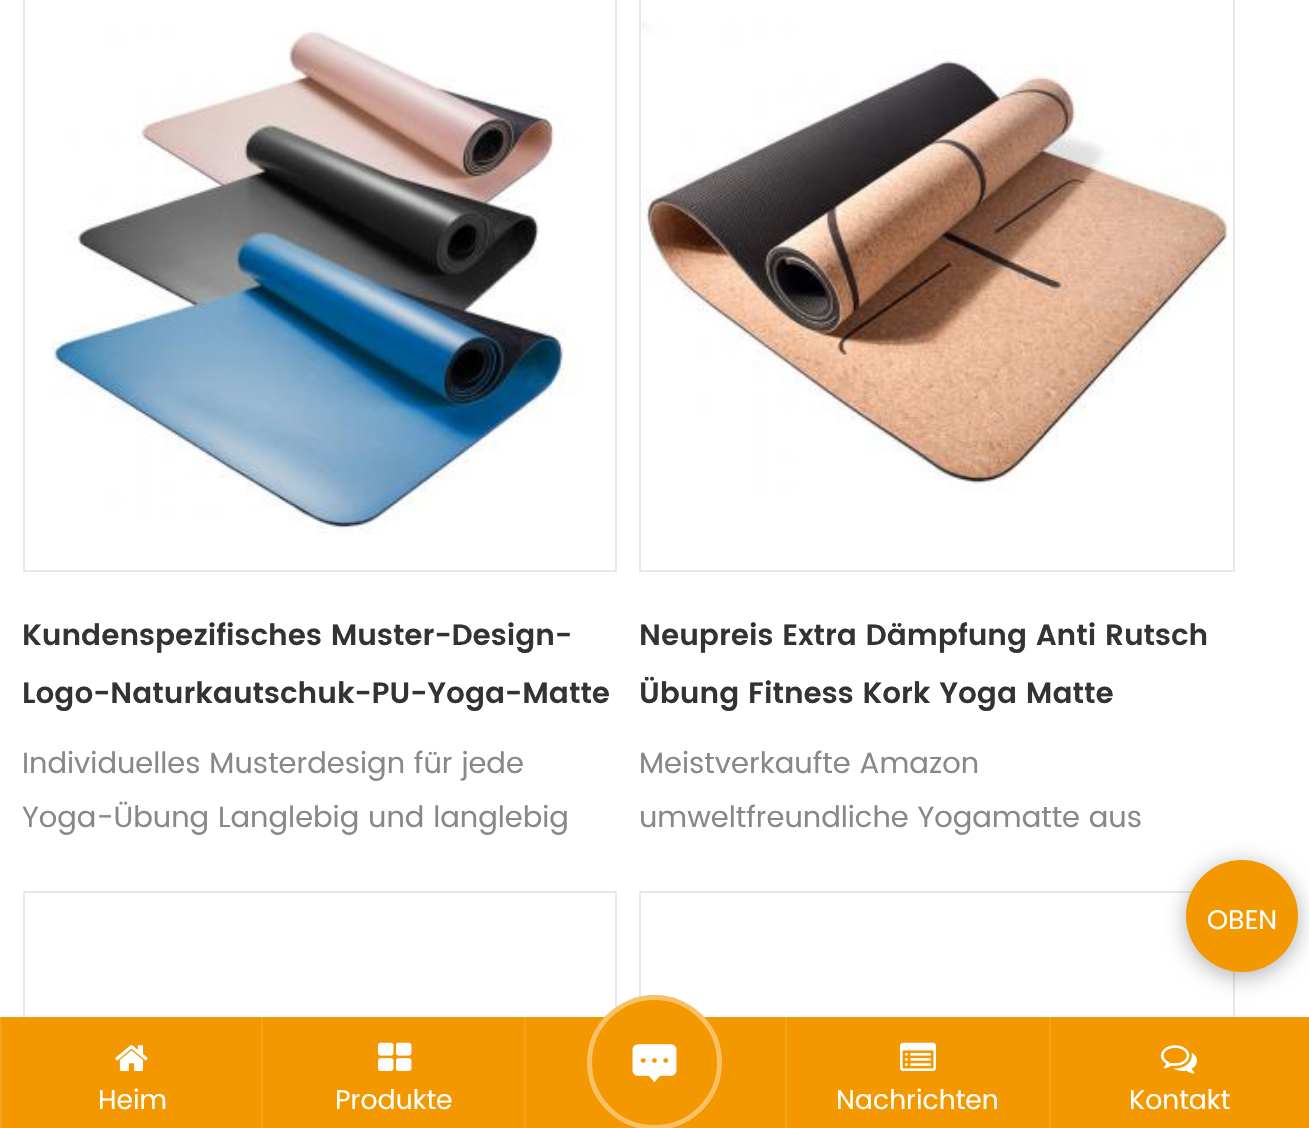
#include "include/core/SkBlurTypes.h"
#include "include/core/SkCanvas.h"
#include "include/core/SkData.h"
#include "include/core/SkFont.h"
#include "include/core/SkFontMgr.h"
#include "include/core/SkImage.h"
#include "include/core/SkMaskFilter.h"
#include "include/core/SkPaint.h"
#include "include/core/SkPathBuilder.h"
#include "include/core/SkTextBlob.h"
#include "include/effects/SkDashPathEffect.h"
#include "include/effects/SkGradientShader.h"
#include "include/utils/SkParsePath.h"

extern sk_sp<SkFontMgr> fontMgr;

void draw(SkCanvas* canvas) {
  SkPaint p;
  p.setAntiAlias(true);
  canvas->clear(SK_ColorWHITE);
  p.setStyle(SkPaint::kStroke_Style);
  p.setStrokeWidth(2);
  p.setColor(SkColorSetRGB(232, 232, 232));
  canvas->drawRect(SkRect::MakeLTRB(24, -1, 616, 571), p);
  canvas->drawImageRect(SkImages::DeferredFromEncodedData(SkData::MakeFromFileName("images/1.png")), SkRect::MakeLTRB(52, 27, 580, 535), SkSamplingOptions());
  canvas->drawRect(SkRect::MakeLTRB(640, -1, 1234, 571), p);
  canvas->drawImageRect(SkImages::DeferredFromEncodedData(SkData::MakeFromFileName("images/2.png")), SkRect::MakeLTRB(641, 21, 1229, 493), SkSamplingOptions());
  canvas->drawRect(SkRect::MakeLTRB(24, 892, 616, 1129), p);
  canvas->drawRect(SkRect::MakeLTRB(640, 892, 1234, 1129), p);
  p.setStyle(SkPaint::kFill_Style);
  p.setColor(SkColorSetARGB(77, 0, 0, 0));
  p.setMaskFilter(SkMaskFilter::MakeBlur(kNormal_SkBlurStyle, 11));
  canvas->drawRoundRect(SkRect::MakeLTRB(1186, 864, 1298, 977), 56, 56, p);
  p.setMaskFilter(nullptr);
  p.setColor(SkColorSetRGB(243, 152, 0));
  canvas->drawCircle(1242, 916, 56, p);
  canvas->drawRect(SkRect::MakeLTRB(2, 1017, 1309, 1128), p);
  canvas->drawCircle(654.5f, 1062.5f, 67.5f, p);
  p.setStyle(SkPaint::kStroke_Style);
  p.setStrokeWidth(5);
  p.setColor(SkColorSetARGB(102, 255, 255, 255));
  canvas->drawCircle(654.5f, 1062.5f, 65, p);
  canvas->drawImageRect(SkImages::DeferredFromEncodedData(SkData::MakeFromFileName("images/3.png")), SkRect::MakeLTRB(632, 1044, 677, 1083), SkSamplingOptions());
  p.setStyle(SkPaint::kFill_Style);
  p.setColor(SkColorSetRGB(244, 162, 26));
  canvas->drawRect(SkRect::MakeLTRB(0, 1017, 2, 1128), p);
  canvas->drawImageRect(SkImages::DeferredFromEncodedData(SkData::MakeFromFileName("images/4.png")), SkRect::MakeLTRB(115, 1045, 148, 1071), SkSamplingOptions());
  canvas->drawRect(SkRect::MakeLTRB(261, 1017, 263, 1128), p);
  canvas->drawImageRect(SkImages::DeferredFromEncodedData(SkData::MakeFromFileName("images/5.png")), SkRect::MakeLTRB(378, 1042, 412, 1071), SkSamplingOptions());
  canvas->drawRect(SkRect::MakeLTRB(524, 1017, 526, 1128), p);
  canvas->drawRect(SkRect::MakeLTRB(785, 1017, 787, 1128), p);
  canvas->drawImageRect(SkImages::DeferredFromEncodedData(SkData::MakeFromFileName("images/6.png")), SkRect::MakeLTRB(900, 1042, 936, 1071), SkSamplingOptions());
  canvas->drawRect(SkRect::MakeLTRB(1049, 1017, 1051, 1128), p);
  canvas->drawImageRect(SkImages::DeferredFromEncodedData(SkData::MakeFromFileName("images/7.png")), SkRect::MakeLTRB(1161, 1045, 1197, 1074), SkSamplingOptions());
  SkFont font1(fontMgr->matchFamilyStyle("Poppins", SkFontStyle(600, SkFontStyle::kNormal_Width, SkFontStyle::kUpright_Slant)), 29.25f);
  font1.setSubpixel(true);
  p.setColor(SkColorSetRGB(51, 51, 51));
  canvas->drawString("Kundenspezifisches Muster-Design-", 22, 645, font1, p);
  canvas->drawString("Logo-Naturkautschuk-PU-Yoga-Matte", 22, 703, font1, p);
  SkFont font2(fontMgr->matchFamilyStyle("Poppins", SkFontStyle::Normal()), 29.25f);
  font2.setSubpixel(true);
  p.setColor(SkColorSetRGB(136, 136, 136));
  canvas->drawString("Individuelles Musterdesign für jede", 22, 773, font2, p);
  canvas->save();
  canvas->clipRect(SkRect::MakeLTRB(23, 738, 617, 846));
  canvas->drawString("Yoga-Übung Langlebig und langlebig", 22, 827, font2, p);
  canvas->restore();
  p.setColor(SkColorSetRGB(51, 51, 51));
  canvas->drawString("Neupreis Extra Dämpfung Anti Rutsch", 639, 645, font1, p);
  canvas->drawString("Übung Fitness Kork Yoga Matte", 639, 703, font1, p);
  p.setColor(SkColorSetRGB(136, 136, 136));
  canvas->drawString("Meistverkaufte Amazon", 639, 773, font2, p);
  canvas->drawString("umweltfreundliche Yogamatte aus", 639, 827, font2, p);
  SkFont font3(fontMgr->matchFamilyStyle("Poppins", SkFontStyle::Normal()), 27);
  font3.setSubpixel(true);
  p.setColor(SK_ColorWHITE);
  canvas->drawString("OBEN", 1207, 929, font3, p);
  canvas->drawString("Heim", 98, 1109, font3, p);
  canvas->drawString("Produkte", 335, 1109, font3, p);
  canvas->drawString("Nachrichten", 836, 1109, font3, p);
  canvas->drawString("Kontakt", 1129, 1109, font3, p);
}
